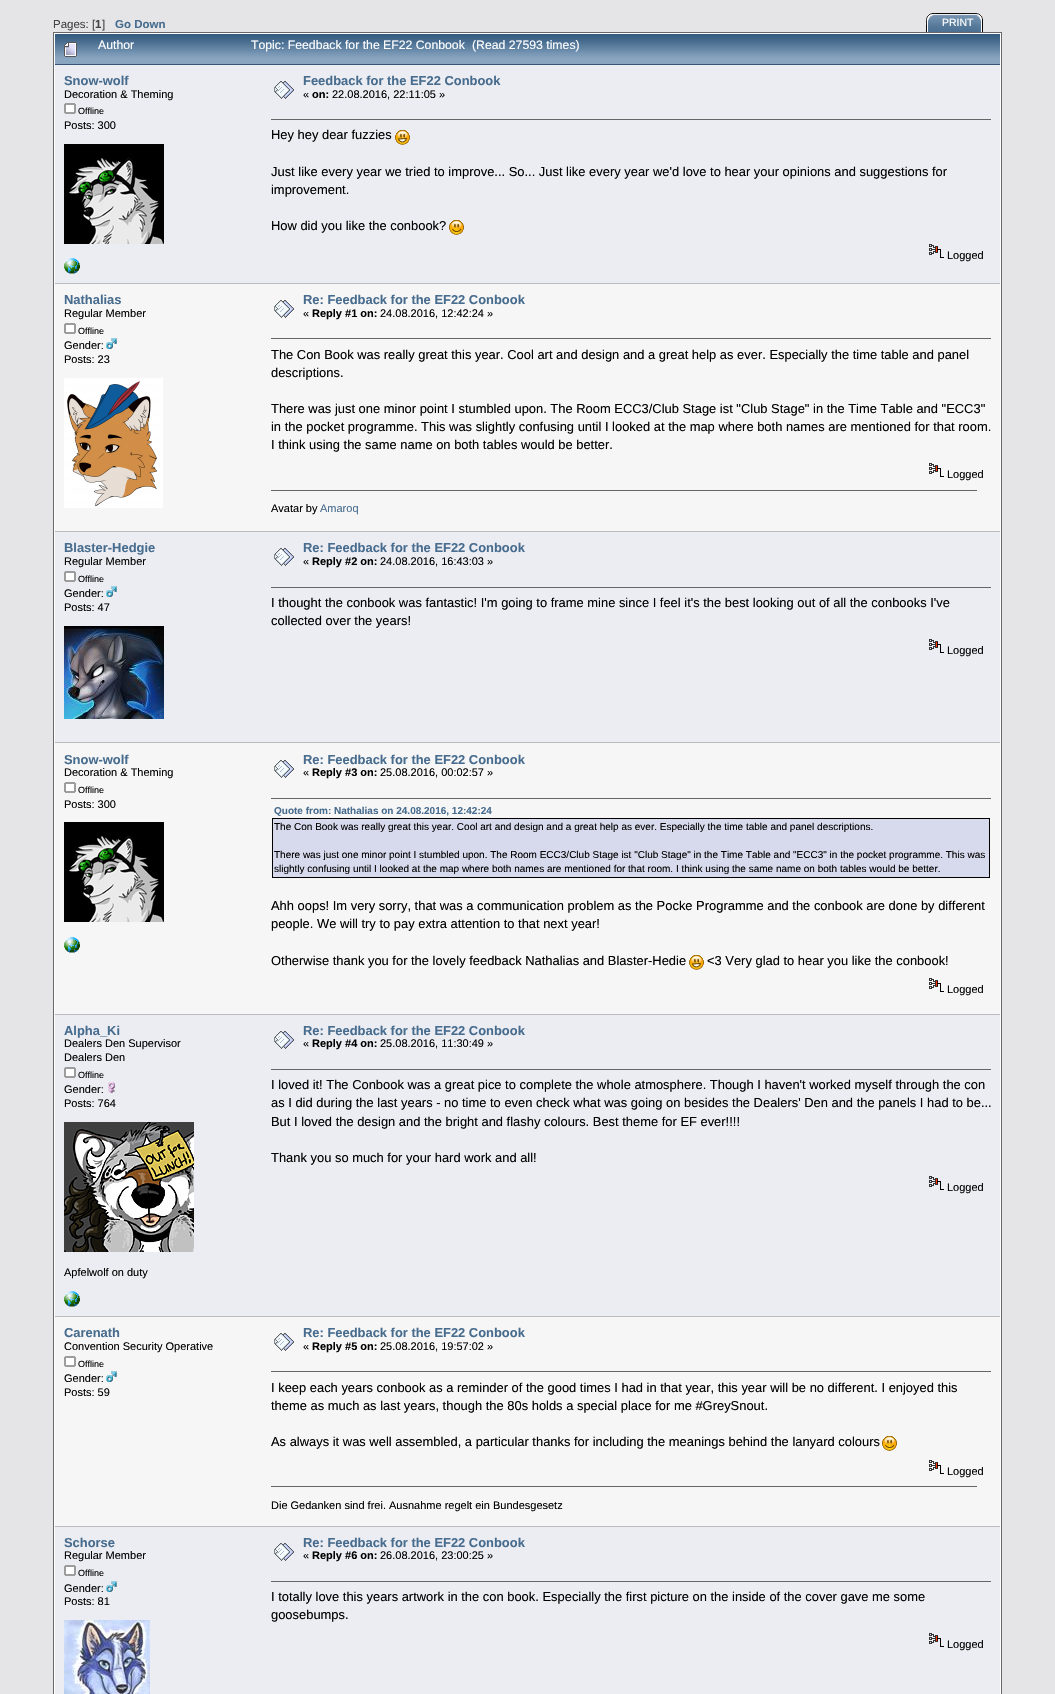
#include "include/core/SkBlurTypes.h"
#include "include/core/SkCanvas.h"
#include "include/core/SkData.h"
#include "include/core/SkFont.h"
#include "include/core/SkFontMgr.h"
#include "include/core/SkImage.h"
#include "include/core/SkMaskFilter.h"
#include "include/core/SkPaint.h"
#include "include/core/SkPathBuilder.h"
#include "include/core/SkTextBlob.h"
#include "include/effects/SkDashPathEffect.h"
#include "include/effects/SkGradientShader.h"
#include "include/utils/SkParsePath.h"

extern sk_sp<SkFontMgr> fontMgr;

void draw(SkCanvas* canvas) {
  SkPaint p;
  p.setAntiAlias(true);
  canvas->clear(SkColorSetRGB(229, 229, 232));
  canvas->drawImageRect(SkImages::DeferredFromEncodedData(SkData::MakeFromFileName("images/1.png")), SkRect::MakeLTRB(926, 13, 966, 32), SkSamplingOptions());
  canvas->drawImageRect(SkImages::DeferredFromEncodedData(SkData::MakeFromFileName("images/2.png")), SkRect::MakeLTRB(936, 13, 983, 32), SkSamplingOptions());
  p.setColor(SK_ColorWHITE);
  canvas->drawRect(SkRect::MakeLTRB(53.5f, 32.5f, 1001.5f, 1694.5f), p);
  p.setStyle(SkPaint::kStroke_Style);
  p.setStrokeWidth(1);
  p.setColor(SkColorSetRGB(105, 105, 105));
  canvas->drawRect(SkRect::MakeLTRB(53.5f, 32.5f, 1001.5f, 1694.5f), p);
  p.setStyle(SkPaint::kFill_Style);
  p.setColor(SkColorSetRGB(136, 166, 192));
  canvas->drawRect(SkRect::MakeLTRB(55, 58, 1000, 64), p);
  canvas->drawImageRect(SkImages::DeferredFromEncodedData(SkData::MakeFromFileName("images/3.png")), SkRect::MakeLTRB(55, 34, 1000, 58), SkSamplingOptions());
  p.setColor(SkColorSetRGB(55, 85, 118));
  canvas->drawRect(SkRect::MakeLTRB(55, 64, 1000, 65), p);
  canvas->drawImageRect(SkImages::DeferredFromEncodedData(SkData::MakeFromFileName("images/4.png")), SkRect::MakeLTRB(64, 42, 77, 57), SkSamplingOptions());
  p.setColor(SkColorSetRGB(236, 237, 243));
  canvas->drawRect(SkRect::MakeLTRB(55, 65, 1000, 283), p);
  canvas->drawImageRect(SkImages::DeferredFromEncodedData(SkData::MakeFromFileName("images/5.png")), SkRect::MakeLTRB(64, 103, 76, 114), SkSamplingOptions());
  canvas->drawImageRect(SkImages::DeferredFromEncodedData(SkData::MakeFromFileName("images/6.png")), SkRect::MakeLTRB(64, 144, 164, 244), SkSamplingOptions());
  canvas->drawImageRect(SkImages::DeferredFromEncodedData(SkData::MakeFromFileName("images/7.png")), SkRect::MakeLTRB(64, 258, 80, 274), SkSamplingOptions());
  canvas->drawImageRect(SkImages::DeferredFromEncodedData(SkData::MakeFromFileName("images/8.png")), SkRect::MakeLTRB(274, 81, 294, 99), SkSamplingOptions());
  p.setColor(SkColorSetRGB(102, 102, 102));
  canvas->drawRect(SkRect::MakeLTRB(271, 119, 991, 120), p);
  canvas->drawImageRect(SkImages::DeferredFromEncodedData(SkData::MakeFromFileName("images/9.png")), SkRect::MakeLTRB(395, 130, 410, 145), SkSamplingOptions());
  canvas->drawImageRect(SkImages::DeferredFromEncodedData(SkData::MakeFromFileName("images/10.png")), SkRect::MakeLTRB(449, 220, 464, 235), SkSamplingOptions());
  canvas->drawImageRect(SkImages::DeferredFromEncodedData(SkData::MakeFromFileName("images/11.png")), SkRect::MakeLTRB(929, 244, 944, 258), SkSamplingOptions());
  p.setColor(SkColorSetRGB(246, 246, 246));
  canvas->drawRect(SkRect::MakeLTRB(55, 284, 1000, 531), p);
  p.setColor(SkColorSetRGB(187, 187, 187));
  canvas->drawRect(SkRect::MakeLTRB(55, 283, 1000, 284), p);
  canvas->drawImageRect(SkImages::DeferredFromEncodedData(SkData::MakeFromFileName("images/12.png")), SkRect::MakeLTRB(64, 323, 76, 334), SkSamplingOptions());
  canvas->drawImageRect(SkImages::DeferredFromEncodedData(SkData::MakeFromFileName("images/13.png")), SkRect::MakeLTRB(106, 338, 117, 349), SkSamplingOptions());
  canvas->drawImageRect(SkImages::DeferredFromEncodedData(SkData::MakeFromFileName("images/14.png")), SkRect::MakeLTRB(64, 378, 163, 508), SkSamplingOptions());
  canvas->drawImageRect(SkImages::DeferredFromEncodedData(SkData::MakeFromFileName("images/15.png")), SkRect::MakeLTRB(274, 300, 294, 318), SkSamplingOptions());
  p.setColor(SkColorSetRGB(102, 102, 102));
  canvas->drawRect(SkRect::MakeLTRB(271, 338, 991, 339), p);
  canvas->drawImageRect(SkImages::DeferredFromEncodedData(SkData::MakeFromFileName("images/16.png")), SkRect::MakeLTRB(929, 463, 944, 477), SkSamplingOptions());
  canvas->drawRect(SkRect::MakeLTRB(271, 490, 977, 491), p);
  p.setColor(SkColorSetRGB(236, 237, 243));
  canvas->drawRect(SkRect::MakeLTRB(55, 532, 1000, 742), p);
  p.setColor(SkColorSetRGB(187, 187, 187));
  canvas->drawRect(SkRect::MakeLTRB(55, 531, 1000, 532), p);
  canvas->drawImageRect(SkImages::DeferredFromEncodedData(SkData::MakeFromFileName("images/5.png")), SkRect::MakeLTRB(64, 571, 76, 582), SkSamplingOptions());
  canvas->drawImageRect(SkImages::DeferredFromEncodedData(SkData::MakeFromFileName("images/17.png")), SkRect::MakeLTRB(106, 586, 117, 597), SkSamplingOptions());
  canvas->drawImageRect(SkImages::DeferredFromEncodedData(SkData::MakeFromFileName("images/18.png")), SkRect::MakeLTRB(64, 626, 164, 719), SkSamplingOptions());
  canvas->drawImageRect(SkImages::DeferredFromEncodedData(SkData::MakeFromFileName("images/8.png")), SkRect::MakeLTRB(274, 548, 294, 566), SkSamplingOptions());
  p.setColor(SkColorSetRGB(102, 102, 102));
  canvas->drawRect(SkRect::MakeLTRB(271, 587, 991, 588), p);
  canvas->drawImageRect(SkImages::DeferredFromEncodedData(SkData::MakeFromFileName("images/11.png")), SkRect::MakeLTRB(929, 639, 944, 653), SkSamplingOptions());
  p.setColor(SkColorSetRGB(246, 246, 246));
  canvas->drawRect(SkRect::MakeLTRB(55, 743, 1000, 1014), p);
  p.setColor(SkColorSetRGB(187, 187, 187));
  canvas->drawRect(SkRect::MakeLTRB(55, 742, 1000, 743), p);
  canvas->drawImageRect(SkImages::DeferredFromEncodedData(SkData::MakeFromFileName("images/12.png")), SkRect::MakeLTRB(64, 782, 76, 793), SkSamplingOptions());
  canvas->drawImageRect(SkImages::DeferredFromEncodedData(SkData::MakeFromFileName("images/6.png")), SkRect::MakeLTRB(64, 822, 164, 922), SkSamplingOptions());
  canvas->drawImageRect(SkImages::DeferredFromEncodedData(SkData::MakeFromFileName("images/19.png")), SkRect::MakeLTRB(64, 937, 80, 953), SkSamplingOptions());
  canvas->drawImageRect(SkImages::DeferredFromEncodedData(SkData::MakeFromFileName("images/15.png")), SkRect::MakeLTRB(274, 760, 294, 778), SkSamplingOptions());
  p.setColor(SkColorSetRGB(102, 102, 102));
  canvas->drawRect(SkRect::MakeLTRB(271, 798, 991, 799), p);
  p.setColor(SkColorSetRGB(215, 218, 236));
  canvas->drawRect(SkRect::MakeLTRB(272.5f, 818.5f, 989.5f, 877.5f), p);
  p.setStyle(SkPaint::kStroke_Style);
  p.setColor(SK_ColorBLACK);
  canvas->drawRect(SkRect::MakeLTRB(272.5f, 818.5f, 989.5f, 877.5f), p);
  canvas->drawImageRect(SkImages::DeferredFromEncodedData(SkData::MakeFromFileName("images/20.png")), SkRect::MakeLTRB(689, 955, 704, 970), SkSamplingOptions());
  canvas->drawImageRect(SkImages::DeferredFromEncodedData(SkData::MakeFromFileName("images/16.png")), SkRect::MakeLTRB(929, 978, 944, 992), SkSamplingOptions());
  p.setStyle(SkPaint::kFill_Style);
  p.setColor(SkColorSetRGB(236, 237, 243));
  canvas->drawRect(SkRect::MakeLTRB(55, 1015, 1000, 1316), p);
  p.setColor(SkColorSetRGB(187, 187, 187));
  canvas->drawRect(SkRect::MakeLTRB(55, 1014, 1000, 1015), p);
  canvas->drawImageRect(SkImages::DeferredFromEncodedData(SkData::MakeFromFileName("images/5.png")), SkRect::MakeLTRB(64, 1067, 76, 1078), SkSamplingOptions());
  canvas->drawImageRect(SkImages::DeferredFromEncodedData(SkData::MakeFromFileName("images/21.png")), SkRect::MakeLTRB(108, 1082, 115, 1093), SkSamplingOptions());
  canvas->drawImageRect(SkImages::DeferredFromEncodedData(SkData::MakeFromFileName("images/22.png")), SkRect::MakeLTRB(64, 1122, 194, 1252), SkSamplingOptions());
  canvas->drawImageRect(SkImages::DeferredFromEncodedData(SkData::MakeFromFileName("images/7.png")), SkRect::MakeLTRB(64, 1291, 80, 1307), SkSamplingOptions());
  canvas->drawImageRect(SkImages::DeferredFromEncodedData(SkData::MakeFromFileName("images/8.png")), SkRect::MakeLTRB(274, 1031, 294, 1049), SkSamplingOptions());
  p.setColor(SkColorSetRGB(102, 102, 102));
  canvas->drawRect(SkRect::MakeLTRB(271, 1069, 991, 1070), p);
  canvas->drawImageRect(SkImages::DeferredFromEncodedData(SkData::MakeFromFileName("images/11.png")), SkRect::MakeLTRB(929, 1176, 944, 1190), SkSamplingOptions());
  p.setColor(SkColorSetRGB(246, 246, 246));
  canvas->drawRect(SkRect::MakeLTRB(55, 1317, 1000, 1526), p);
  p.setColor(SkColorSetRGB(187, 187, 187));
  canvas->drawRect(SkRect::MakeLTRB(55, 1316, 1000, 1317), p);
  canvas->drawImageRect(SkImages::DeferredFromEncodedData(SkData::MakeFromFileName("images/12.png")), SkRect::MakeLTRB(64, 1356, 76, 1367), SkSamplingOptions());
  canvas->drawImageRect(SkImages::DeferredFromEncodedData(SkData::MakeFromFileName("images/13.png")), SkRect::MakeLTRB(106, 1371, 117, 1382), SkSamplingOptions());
  canvas->drawImageRect(SkImages::DeferredFromEncodedData(SkData::MakeFromFileName("images/15.png")), SkRect::MakeLTRB(274, 1333, 294, 1351), SkSamplingOptions());
  p.setColor(SkColorSetRGB(102, 102, 102));
  canvas->drawRect(SkRect::MakeLTRB(271, 1371, 991, 1372), p);
  canvas->drawImageRect(SkImages::DeferredFromEncodedData(SkData::MakeFromFileName("images/23.png")), SkRect::MakeLTRB(882, 1436, 897, 1451), SkSamplingOptions());
  canvas->drawImageRect(SkImages::DeferredFromEncodedData(SkData::MakeFromFileName("images/16.png")), SkRect::MakeLTRB(929, 1460, 944, 1474), SkSamplingOptions());
  canvas->drawRect(SkRect::MakeLTRB(271, 1486, 977, 1487), p);
  p.setColor(SkColorSetRGB(236, 237, 243));
  canvas->drawRect(SkRect::MakeLTRB(55, 1527, 1000, 1694), p);
  p.setColor(SkColorSetRGB(187, 187, 187));
  canvas->drawRect(SkRect::MakeLTRB(55, 1526, 1000, 1527), p);
  canvas->drawImageRect(SkImages::DeferredFromEncodedData(SkData::MakeFromFileName("images/5.png")), SkRect::MakeLTRB(64, 1565, 76, 1576), SkSamplingOptions());
  canvas->drawImageRect(SkImages::DeferredFromEncodedData(SkData::MakeFromFileName("images/17.png")), SkRect::MakeLTRB(106, 1581, 117, 1592), SkSamplingOptions());
  canvas->drawImageRect(SkImages::DeferredFromEncodedData(SkData::MakeFromFileName("images/24.png")), SkRect::MakeLTRB(64, 1620, 150, 1694), SkSamplingOptions());
  canvas->drawImageRect(SkImages::DeferredFromEncodedData(SkData::MakeFromFileName("images/8.png")), SkRect::MakeLTRB(274, 1543, 294, 1561), SkSamplingOptions());
  p.setColor(SkColorSetRGB(102, 102, 102));
  canvas->drawRect(SkRect::MakeLTRB(271, 1581, 991, 1582), p);
  canvas->drawImageRect(SkImages::DeferredFromEncodedData(SkData::MakeFromFileName("images/11.png")), SkRect::MakeLTRB(929, 1633, 944, 1647), SkSamplingOptions());
  SkFont font1(fontMgr->matchFamilyStyle("Liberation Sans", SkFontStyle::Normal()), 11.5f);
  font1.setSubpixel(true);
  p.setColor(SkColorSetRGB(68, 68, 68));
  canvas->drawString("Pages: [", 53, 28, font1, p);
  SkFont font2(fontMgr->matchFamilyStyle("Liberation Sans", SkFontStyle::Bold()), 11.5f);
  font2.setSubpixel(true);
  canvas->drawString("1", 95, 28, font2, p);
  canvas->drawString("]", 102, 28, font1, p);
  p.setColor(SkColorSetRGB(71, 108, 142));
  canvas->drawString("Go Down", 115, 28, font2, p);
  SkFont font3(fontMgr->matchFamilyStyle("Liberation Sans", SkFontStyle::Normal()), 10.5f);
  font3.setSubpixel(true);
  p.setColor(SK_ColorWHITE);
  canvas->drawString("PRINT", 942, 26, font3, p);
  SkFont font4(fontMgr->matchFamilyStyle("Liberation Sans", SkFontStyle::Normal()), 12.25f);
  font4.setSubpixel(true);
  canvas->drawString("Author", 98, 49, font4, p);
  canvas->drawString("Topic: Feedback for the EF22 Conbook", 251, 49, font4, p);
  canvas->drawString("(Read 27593 times)", 472, 49, font4, p);
  SkFont font5(fontMgr->matchFamilyStyle("Liberation Sans", SkFontStyle::Bold()), 12.92f);
  font5.setSubpixel(true);
  p.setColor(SkColorSetRGB(71, 108, 142));
  canvas->drawString("Snow-wolf", 64, 85, font5, p);
  SkFont font6(fontMgr->matchFamilyStyle("Liberation Sans", SkFontStyle::Normal()), 11);
  font6.setSubpixel(true);
  p.setColor(SK_ColorBLACK);
  canvas->drawString("Decoration & Theming", 64, 98, font6, p);
  SkFont font7(fontMgr->matchFamilyStyle("Liberation Sans", SkFontStyle::Normal()), 9);
  font7.setSubpixel(true);
  canvas->drawString("Offline", 78, 114, font7, p);
  canvas->drawString("Posts: 300", 64, 129, font6, p);
  p.setColor(SkColorSetRGB(71, 108, 142));
  canvas->drawString("Feedback for the EF22 Conbook", 303, 85, font5, p);
  p.setColor(SK_ColorBLACK);
  canvas->drawString("«", 303, 98, font6, p);
  SkFont font8(fontMgr->matchFamilyStyle("Liberation Sans", SkFontStyle::Bold()), 11);
  font8.setSubpixel(true);
  canvas->drawString("on:", 312, 98, font8, p);
  canvas->drawString("22.08.2016, 22:11:05 »", 332, 98, font6, p);
  SkFont font9(fontMgr->matchFamilyStyle("Liberation Sans", SkFontStyle::Normal()), 12.92f);
  font9.setSubpixel(true);
  canvas->drawString("Hey hey dear fuzzies", 271, 139, font9, p);
  canvas->drawString("Just like every year we tried to improve... So... Just like every year we'd love to hear your opinions and suggestions for", 271, 176, font9, p);
  canvas->drawString("improvement.", 271, 194, font9, p);
  canvas->drawString("How did you like the conbook?", 271, 230, font9, p);
  canvas->drawString("Logged", 947, 259, font6, p);
  p.setColor(SkColorSetRGB(71, 108, 142));
  canvas->drawString("Nathalias", 64, 304, font5, p);
  p.setColor(SK_ColorBLACK);
  canvas->drawString("Regular Member", 64, 317, font6, p);
  canvas->drawString("Offline", 78, 334, font7, p);
  canvas->drawString("Gender:", 64, 349, font6, p);
  canvas->drawString("Posts: 23", 64, 363, font6, p);
  p.setColor(SkColorSetRGB(71, 108, 142));
  canvas->drawString("Re: Feedback for the EF22 Conbook", 303, 304, font5, p);
  p.setColor(SK_ColorBLACK);
  canvas->drawString("«", 303, 317, font6, p);
  canvas->drawString("Reply #1 on:", 312, 317, font8, p);
  canvas->drawString("24.08.2016, 12:42:24 »", 380, 317, font6, p);
  canvas->drawString("The Con Book was really great this year. Cool art and design and a great help as ever. Especially the time table and panel", 271, 359, font9, p);
  canvas->drawString("descriptions.", 271, 377, font9, p);
  canvas->drawString("There was just one minor point I stumbled upon. The Room ECC3/Club Stage ist \"Club Stage\" in the Time Table and \"ECC3\"", 271, 413, font9, p);
  canvas->drawString("in the pocket programme. This was slightly confusing until I looked at the map where both names are mentioned for that room.", 271, 431, font9, p);
  canvas->drawString("I think using the same name on both tables would be better.", 271, 449, font9, p);
  canvas->drawString("Logged", 947, 478, font6, p);
  canvas->drawString("Avatar by", 271, 512, font6, p);
  p.setColor(SkColorSetRGB(71, 108, 142));
  canvas->drawString("Amaroq", 320, 512, font6, p);
  canvas->drawString("Blaster-Hedgie", 64, 552, font5, p);
  p.setColor(SK_ColorBLACK);
  canvas->drawString("Regular Member", 64, 565, font6, p);
  canvas->drawString("Offline", 78, 582, font7, p);
  canvas->drawString("Gender:", 64, 597, font6, p);
  canvas->drawString("Posts: 47", 64, 611, font6, p);
  p.setColor(SkColorSetRGB(71, 108, 142));
  canvas->drawString("Re: Feedback for the EF22 Conbook", 303, 552, font5, p);
  p.setColor(SK_ColorBLACK);
  canvas->drawString("«", 303, 565, font6, p);
  canvas->drawString("Reply #2 on:", 312, 565, font8, p);
  canvas->drawString("24.08.2016, 16:43:03 »", 380, 565, font6, p);
  canvas->drawString("I thought the conbook was fantastic! I'm going to frame mine since I feel it's the best looking out of all the conbooks I've", 271, 607, font9, p);
  canvas->drawString("collected over the years!", 271, 625, font9, p);
  canvas->drawString("Logged", 947, 654, font6, p);
  p.setColor(SkColorSetRGB(71, 108, 142));
  canvas->drawString("Snow-wolf", 64, 764, font5, p);
  p.setColor(SK_ColorBLACK);
  canvas->drawString("Decoration & Theming", 64, 776, font6, p);
  canvas->drawString("Offline", 78, 793, font7, p);
  canvas->drawString("Posts: 300", 64, 808, font6, p);
  p.setColor(SkColorSetRGB(71, 108, 142));
  canvas->drawString("Re: Feedback for the EF22 Conbook", 303, 764, font5, p);
  p.setColor(SK_ColorBLACK);
  canvas->drawString("«", 303, 776, font6, p);
  canvas->drawString("Reply #3 on:", 312, 776, font8, p);
  canvas->drawString("25.08.2016, 00:02:57 »", 380, 776, font6, p);
  SkFont font10(fontMgr->matchFamilyStyle("Liberation Sans", SkFontStyle::Bold()), 10);
  font10.setSubpixel(true);
  p.setColor(SkColorSetRGB(71, 108, 142));
  canvas->drawString("Quote from: Nathalias on 24.08.2016, 12:42:24", 274, 814, font10, p);
  SkFont font11(fontMgr->matchFamilyStyle("Liberation Sans", SkFontStyle::Normal()), 10);
  font11.setSubpixel(true);
  p.setColor(SK_ColorBLACK);
  canvas->drawString("The Con Book was really great this year. Cool art and design and a great help as ever. Especially the time table and panel descriptions.", 274, 830, font11, p);
  canvas->drawString("There was just one minor point I stumbled upon. The Room ECC3/Club Stage ist \"Club Stage\" in the Time Table and \"ECC3\" in the pocket programme. This was", 274, 858, font11, p);
  canvas->drawString("slightly confusing until I looked at the map where both names are mentioned for that room. I think using the same name on both tables would be better.", 274, 872, font11, p);
  canvas->drawString("Ahh oops! Im very sorry, that was a communication problem as the Pocke Programme and the conbook are done by different", 271, 910, font9, p);
  canvas->drawString("people. We will try to pay extra attention to that next year!", 271, 928, font9, p);
  canvas->drawString("Otherwise thank you for the lovely feedback Nathalias and Blaster-Hedie", 271, 965, font9, p);
  canvas->drawString("<3 Very glad to hear you like the conbook!", 707, 965, font9, p);
  canvas->drawString("Logged", 947, 993, font6, p);
  p.setColor(SkColorSetRGB(71, 108, 142));
  canvas->drawString("Alpha_Ki", 64, 1035, font5, p);
  p.setColor(SK_ColorBLACK);
  canvas->drawString("Dealers Den Supervisor", 64, 1047, font6, p);
  canvas->drawString("Dealers Den", 64, 1061, font6, p);
  canvas->drawString("Offline", 78, 1078, font7, p);
  canvas->drawString("Gender:", 64, 1093, font6, p);
  canvas->drawString("Posts: 764", 64, 1107, font6, p);
  canvas->drawString("Apfelwolf on duty", 64, 1276, font6, p);
  p.setColor(SkColorSetRGB(71, 108, 142));
  canvas->drawString("Re: Feedback for the EF22 Conbook", 303, 1035, font5, p);
  p.setColor(SK_ColorBLACK);
  canvas->drawString("«", 303, 1047, font6, p);
  canvas->drawString("Reply #4 on:", 312, 1047, font8, p);
  canvas->drawString("25.08.2016, 11:30:49 »", 380, 1047, font6, p);
  canvas->drawString("I loved it! The Conbook was a great pice to complete the whole atmosphere. Though I haven't worked myself through the con", 271, 1089, font9, p);
  canvas->drawString("as I did during the last years - no time to even check what was going on besides the Dealers' Den and the panels I had to be...", 271, 1107, font9, p);
  canvas->drawString("But I loved the design and the bright and flashy colours. Best theme for EF ever!!!!", 271, 1126, font9, p);
  canvas->drawString("Thank you so much for your hard work and all!", 271, 1162, font9, p);
  canvas->drawString("Logged", 947, 1191, font6, p);
  p.setColor(SkColorSetRGB(71, 108, 142));
  canvas->drawString("Carenath", 64, 1337, font5, p);
  p.setColor(SK_ColorBLACK);
  canvas->drawString("Convention Security Operative", 64, 1350, font6, p);
  canvas->drawString("Offline", 78, 1367, font7, p);
  canvas->drawString("Gender:", 64, 1382, font6, p);
  canvas->drawString("Posts: 59", 64, 1396, font6, p);
  p.setColor(SkColorSetRGB(71, 108, 142));
  canvas->drawString("Re: Feedback for the EF22 Conbook", 303, 1337, font5, p);
  p.setColor(SK_ColorBLACK);
  canvas->drawString("«", 303, 1350, font6, p);
  canvas->drawString("Reply #5 on:", 312, 1350, font8, p);
  canvas->drawString("25.08.2016, 19:57:02 »", 380, 1350, font6, p);
  canvas->drawString("I keep each years conbook as a reminder of the good times I had in that year, this year will be no different. I enjoyed this", 271, 1392, font9, p);
  canvas->drawString("theme as much as last years, though the 80s holds a special place for me #GreySnout.", 271, 1410, font9, p);
  canvas->drawString("As always it was well assembled, a particular thanks for including the meanings behind the lanyard colours", 271, 1446, font9, p);
  canvas->drawString("Logged", 947, 1475, font6, p);
  canvas->drawString("Die Gedanken sind frei. Ausnahme regelt ein Bundesgesetz", 271, 1509, font6, p);
  p.setColor(SkColorSetRGB(71, 108, 142));
  canvas->drawString("Schorse", 64, 1547, font5, p);
  p.setColor(SK_ColorBLACK);
  canvas->drawString("Regular Member", 64, 1559, font6, p);
  canvas->drawString("Offline", 78, 1576, font7, p);
  canvas->drawString("Gender:", 64, 1592, font6, p);
  canvas->drawString("Posts: 81", 64, 1605, font6, p);
  p.setColor(SkColorSetRGB(71, 108, 142));
  canvas->drawString("Re: Feedback for the EF22 Conbook", 303, 1547, font5, p);
  p.setColor(SK_ColorBLACK);
  canvas->drawString("«", 303, 1559, font6, p);
  canvas->drawString("Reply #6 on:", 312, 1559, font8, p);
  canvas->drawString("26.08.2016, 23:00:25 »", 380, 1559, font6, p);
  canvas->drawString("I totally love this years artwork in the con book. Especially the first picture on the inside of the cover gave me some", 271, 1601, font9, p);
  canvas->drawString("goosebumps.", 271, 1619, font9, p);
  canvas->drawString("Logged", 947, 1648, font6, p);
}
